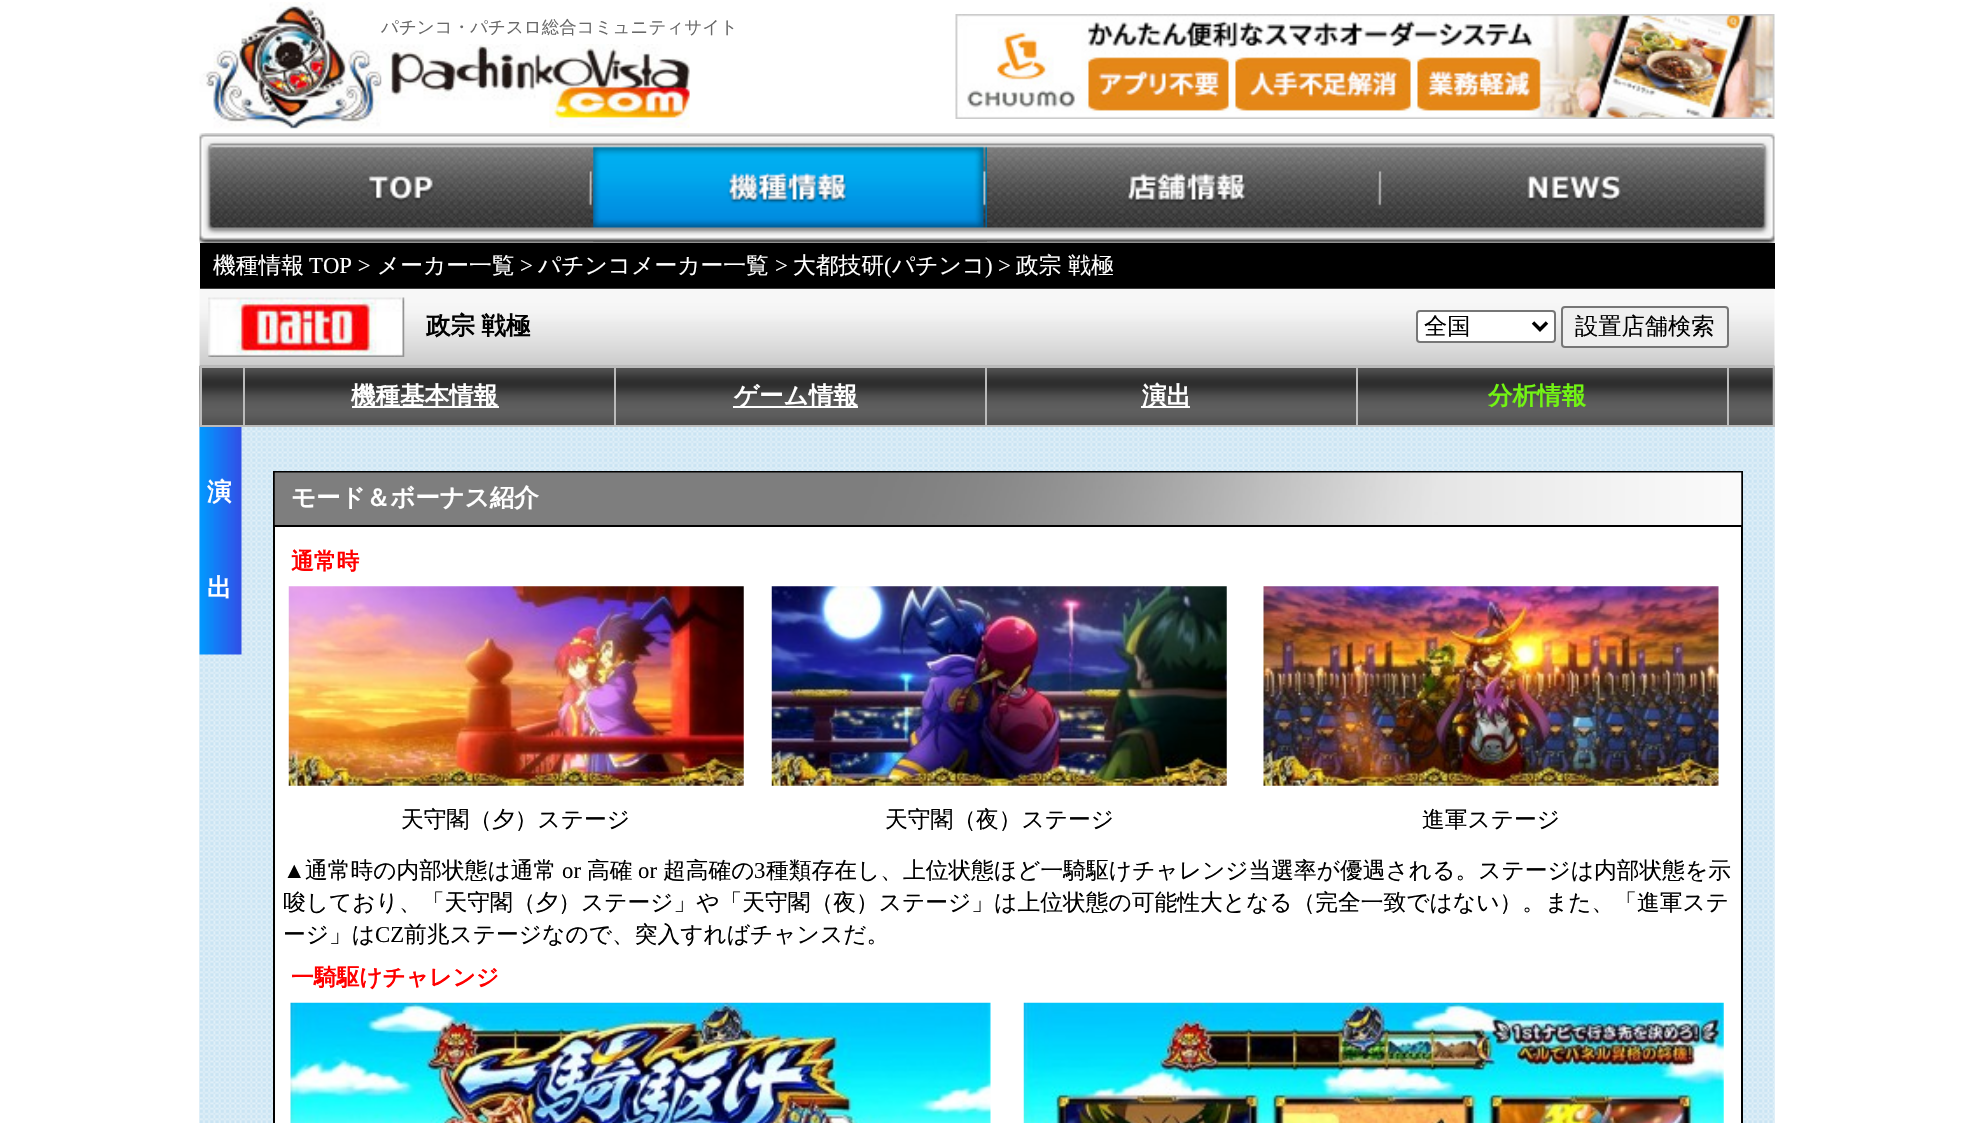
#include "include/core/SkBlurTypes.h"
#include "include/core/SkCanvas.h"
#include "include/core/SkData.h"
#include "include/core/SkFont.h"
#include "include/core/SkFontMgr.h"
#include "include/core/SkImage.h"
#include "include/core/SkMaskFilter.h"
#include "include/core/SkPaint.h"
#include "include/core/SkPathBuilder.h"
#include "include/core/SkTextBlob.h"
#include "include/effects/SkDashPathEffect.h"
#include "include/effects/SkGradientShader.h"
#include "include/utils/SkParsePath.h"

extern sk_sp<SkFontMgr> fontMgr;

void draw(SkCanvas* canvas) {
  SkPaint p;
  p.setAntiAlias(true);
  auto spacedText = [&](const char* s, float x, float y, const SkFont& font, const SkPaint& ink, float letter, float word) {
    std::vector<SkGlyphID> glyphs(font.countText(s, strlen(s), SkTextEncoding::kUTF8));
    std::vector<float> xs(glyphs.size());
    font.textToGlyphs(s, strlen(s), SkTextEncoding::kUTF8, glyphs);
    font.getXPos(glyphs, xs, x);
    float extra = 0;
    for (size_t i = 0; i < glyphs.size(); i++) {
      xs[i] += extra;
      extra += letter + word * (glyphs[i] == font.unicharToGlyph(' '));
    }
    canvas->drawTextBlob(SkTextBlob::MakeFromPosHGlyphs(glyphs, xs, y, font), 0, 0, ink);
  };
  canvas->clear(SK_ColorWHITE);
  canvas->drawImageRect(SkImages::DeferredFromEncodedData(SkData::MakeFromFileName("images/1.png")), SkRect::MakeLTRB(199, 2, 382, 129), SkSamplingOptions());
  canvas->drawImageRect(SkImages::DeferredFromEncodedData(SkData::MakeFromFileName("images/2.png")), SkRect::MakeLTRB(381, 44, 690, 128), SkSamplingOptions());
  canvas->drawImageRect(SkImages::DeferredFromEncodedData(SkData::MakeFromFileName("images/3.png")), SkRect::MakeLTRB(955, 14, 1775, 119), SkSamplingOptions());
  canvas->drawImageRect(SkImages::DeferredFromEncodedData(SkData::MakeFromFileName("images/4.png")), SkRect::MakeLTRB(199, 133, 1775, 244), SkSamplingOptions());
  canvas->drawImageRect(SkImages::DeferredFromEncodedData(SkData::MakeFromFileName("images/5.png")), SkRect::MakeLTRB(593, 146, 987, 242), SkSamplingOptions());
  p.setColor(SK_ColorBLACK);
  canvas->drawRect(SkRect::MakeLTRB(200, 243, 1775, 289), p);
  canvas->drawImageRect(SkImages::DeferredFromEncodedData(SkData::MakeFromFileName("images/6.png")), SkRect::MakeLTRB(199, 288, 1775, 366), SkSamplingOptions());
  canvas->drawImageRect(SkImages::DeferredFromEncodedData(SkData::MakeFromFileName("images/7.png")), SkRect::MakeLTRB(208, 297, 405, 357), SkSamplingOptions());
  p.setColor(SK_ColorWHITE);
  canvas->drawRoundRect(SkRect::MakeLTRB(1417, 311, 1555, 342), 3, 3, p);
  p.setStyle(SkPaint::kStroke_Style);
  p.setStrokeWidth(2);
  p.setColor(SkColorSetRGB(118, 118, 118));
  canvas->drawRoundRect(SkRect::MakeLTRB(1417, 311, 1555, 342), 3, 3, p);
  p.setStrokeWidth(3.5f);
  p.setColor(SK_ColorBLACK);
  canvas->drawPath(SkPathBuilder().moveTo(1533, 322.5f).lineTo(1540, 329.5f).lineTo(1547, 322.5f).detach(), p);
  p.setStyle(SkPaint::kFill_Style);
  p.setColor(SkColorSetRGB(239, 239, 239));
  canvas->drawRoundRect(SkRect::MakeLTRB(1562, 307, 1728, 347), 3, 3, p);
  p.setStyle(SkPaint::kStroke_Style);
  p.setStrokeWidth(2);
  p.setColor(SkColorSetRGB(118, 118, 118));
  canvas->drawRoundRect(SkRect::MakeLTRB(1562, 307, 1728, 347), 3, 3, p);
  canvas->drawImageRect(SkImages::DeferredFromEncodedData(SkData::MakeFromFileName("images/8.png")), SkRect::MakeLTRB(199, 365, 1775, 427), SkSamplingOptions());
  p.setStyle(SkPaint::kFill_Style);
  p.setColor(SkColorSetRGB(187, 187, 187));
  canvas->drawRect(SkRect::MakeLTRB(200, 366, 1775, 368), p);
  canvas->drawRect(SkRect::MakeLTRB(200, 366, 202, 427), p);
  canvas->drawRect(SkRect::MakeLTRB(1774, 366, 1775, 427), p);
  canvas->drawRect(SkRect::MakeLTRB(1727, 425, 1775, 426), p);
  canvas->drawRect(SkRect::MakeLTRB(1727, 366, 1728, 427), p);
  canvas->drawRect(SkRect::MakeLTRB(1356, 425, 1729, 426), p);
  canvas->drawRect(SkRect::MakeLTRB(1356, 366, 1357, 427), p);
  canvas->drawRect(SkRect::MakeLTRB(985, 425, 1358, 426), p);
  canvas->drawRect(SkRect::MakeLTRB(985, 366, 986, 427), p);
  canvas->drawRect(SkRect::MakeLTRB(614, 425, 987, 426), p);
  canvas->drawRect(SkRect::MakeLTRB(614, 366, 615, 427), p);
  canvas->drawRect(SkRect::MakeLTRB(243, 425, 616, 426), p);
  canvas->drawRect(SkRect::MakeLTRB(243, 366, 244, 427), p);
  canvas->drawRect(SkRect::MakeLTRB(200, 425, 245, 426), p);
  p.setColor(SK_ColorWHITE);
  canvas->drawRect(SkRect::MakeLTRB(352, 406, 499, 408), p);
  canvas->drawRect(SkRect::MakeLTRB(733, 406, 858, 408), p);
  canvas->drawRect(SkRect::MakeLTRB(1141, 406, 1190, 408), p);
  canvas->drawImageRect(SkImages::DeferredFromEncodedData(SkData::MakeFromFileName("images/9.png")), SkRect::MakeLTRB(199, 427, 1775, 1123), SkSamplingOptions());
  canvas->drawImageRect(SkImages::DeferredFromEncodedData(SkData::MakeFromFileName("images/10.png")), SkRect::MakeLTRB(199, 427, 1775, 1123), SkSamplingOptions());
  canvas->drawImageRect(SkImages::DeferredFromEncodedData(SkData::MakeFromFileName("images/11.png")), SkRect::MakeLTRB(199, 427, 242, 655), SkSamplingOptions());
  p.setColor(SK_ColorBLACK);
  canvas->drawRect(SkRect::MakeLTRB(273, 471, 1743, 1123), p);
  canvas->drawImageRect(SkImages::DeferredFromEncodedData(SkData::MakeFromFileName("images/12.png")), SkRect::MakeLTRB(274, 472, 1742, 525), SkSamplingOptions());
  p.setColor(SK_ColorWHITE);
  canvas->drawRect(SkRect::MakeLTRB(275, 527, 1741, 1123), p);
  canvas->drawImageRect(SkImages::DeferredFromEncodedData(SkData::MakeFromFileName("images/13.png")), SkRect::MakeLTRB(288, 586, 744, 786), SkSamplingOptions());
  canvas->drawImageRect(SkImages::DeferredFromEncodedData(SkData::MakeFromFileName("images/14.png")), SkRect::MakeLTRB(771, 586, 1227, 786), SkSamplingOptions());
  canvas->drawImageRect(SkImages::DeferredFromEncodedData(SkData::MakeFromFileName("images/15.png")), SkRect::MakeLTRB(1263, 586, 1719, 786), SkSamplingOptions());
  canvas->drawImageRect(SkImages::DeferredFromEncodedData(SkData::MakeFromFileName("images/16.png")), SkRect::MakeLTRB(290, 1002, 991, 1123), SkSamplingOptions());
  canvas->drawImageRect(SkImages::DeferredFromEncodedData(SkData::MakeFromFileName("images/17.png")), SkRect::MakeLTRB(1023, 1002, 1724, 1123), SkSamplingOptions());
  SkFont font1(fontMgr->matchFamilyStyle("WenQuanYi Zen Hei", SkFontStyle(500, SkFontStyle::kNormal_Width, SkFontStyle::kUpright_Slant)), 17.5f);
  font1.setSubpixel(true);
  p.setColor(SkColorSetRGB(105, 105, 105));
  canvas->drawString("パチンコ・パチスロ総合コミュニティサイト", 381, 33, font1, p);
  SkFont font2(fontMgr->matchFamilyStyle("WenQuanYi Zen Hei", SkFontStyle(500, SkFontStyle::kNormal_Width, SkFontStyle::kUpright_Slant)), 22.75f);
  font2.setSubpixel(true);
  p.setColor(SK_ColorWHITE);
  canvas->drawString("機種情報", 213, 273, font2, p);
  SkFont font3(fontMgr->matchFamilyStyle("Liberation Serif", SkFontStyle::Normal()), 22.75f);
  font3.setSubpixel(true);
  canvas->drawString("TOP >", 309, 273, font3, p);
  canvas->drawString("メーカー一覧", 377, 273, font2, p);
  canvas->drawString(">", 520, 273, font3, p);
  canvas->drawString("パチンコメーカー一覧", 538, 273, font2, p);
  canvas->drawString(">", 775, 273, font3, p);
  canvas->drawString("大都技研", 793, 273, font2, p);
  canvas->drawString("(", 884, 273, font3, p);
  canvas->drawString("パチンコ", 892, 273, font2, p);
  canvas->drawString(")", 985, 273, font3, p);
  canvas->drawString(">", 998, 273, font3, p);
  canvas->drawString("政宗 戦極", 1016, 273, font2, p);
  SkFont font4(fontMgr->matchFamilyStyle("WenQuanYi Zen Hei", SkFontStyle::Bold()), 24.5f);
  font4.setSubpixel(true);
  p.setColor(SK_ColorBLACK);
  spacedText("政宗 戦極", 426, 334, font4, p, 0, -1);
  SkFont font5(fontMgr->matchFamilyStyle("WenQuanYi Zen Hei", SkFontStyle(500, SkFontStyle::kNormal_Width, SkFontStyle::kUpright_Slant)), 23.25f);
  font5.setSubpixel(true);
  canvas->drawString("全国", 1424, 334, font5, p);
  canvas->drawString("設置店舗検索", 1575, 334, font5, p);
  p.setColor(SK_ColorWHITE);
  canvas->drawString("機種基本情報", 351, 404, font4, p);
  canvas->drawString("ゲーム情報", 734, 404, font4, p);
  canvas->drawString("演出", 1142, 404, font4, p);
  p.setColor(SkColorSetRGB(114, 245, 19));
  canvas->drawString("分析情報", 1488, 404, font4, p);
  p.setColor(SK_ColorWHITE);
  canvas->drawString("演", 207, 500, font4, p);
  canvas->drawString("出", 207, 596, font4, p);
  canvas->drawString("モード＆ボーナス紹介", 291, 506, font4, p);
  SkFont font6(fontMgr->matchFamilyStyle("WenQuanYi Zen Hei", SkFontStyle::Bold()), 22.75f);
  font6.setSubpixel(true);
  p.setColor(SkColorSetRGB(255, 0, 0));
  canvas->drawString("通常時", 291, 569, font6, p);
  p.setColor(SK_ColorBLACK);
  canvas->drawString("天守閣（夕）ステージ", 401, 827, font2, p);
  canvas->drawString("天守閣（夜）ステージ", 885, 827, font2, p);
  canvas->drawString("進軍ステージ", 1422, 827, font2, p);
  canvas->drawString("▲", 283, 878, font3, p);
  canvas->drawString("通常時の内部状態は通常", 305, 878, font2, p);
  canvas->drawString("or", 562, 878, font3, p);
  canvas->drawString("高確", 587, 878, font2, p);
  canvas->drawString("or", 638, 878, font3, p);
  canvas->drawString("超高確の", 663, 878, font2, p);
  canvas->drawString("3", 754, 878, font3, p);
  canvas->drawString("種類存在し、上位状態ほど一騎駆けチャレンジ当選率が優遇される。ステージは内部状態を示", 766, 878, font2, p);
  canvas->drawString("唆しており、「天守閣（夕）ステージ」や「天守閣（夜）ステージ」は上位状態の可能性大となる（完全一致ではない）。また、「進軍ステ", 283, 910, font2, p);
  canvas->drawString("ージ」は", 283, 942, font2, p);
  canvas->drawString("CZ", 375, 942, font3, p);
  canvas->drawString("前兆ステージなので、突入すればチャンスだ。", 404, 942, font2, p);
  p.setColor(SkColorSetRGB(255, 0, 0));
  canvas->drawString("一騎駆けチャレンジ", 291, 985, font6, p);
}
